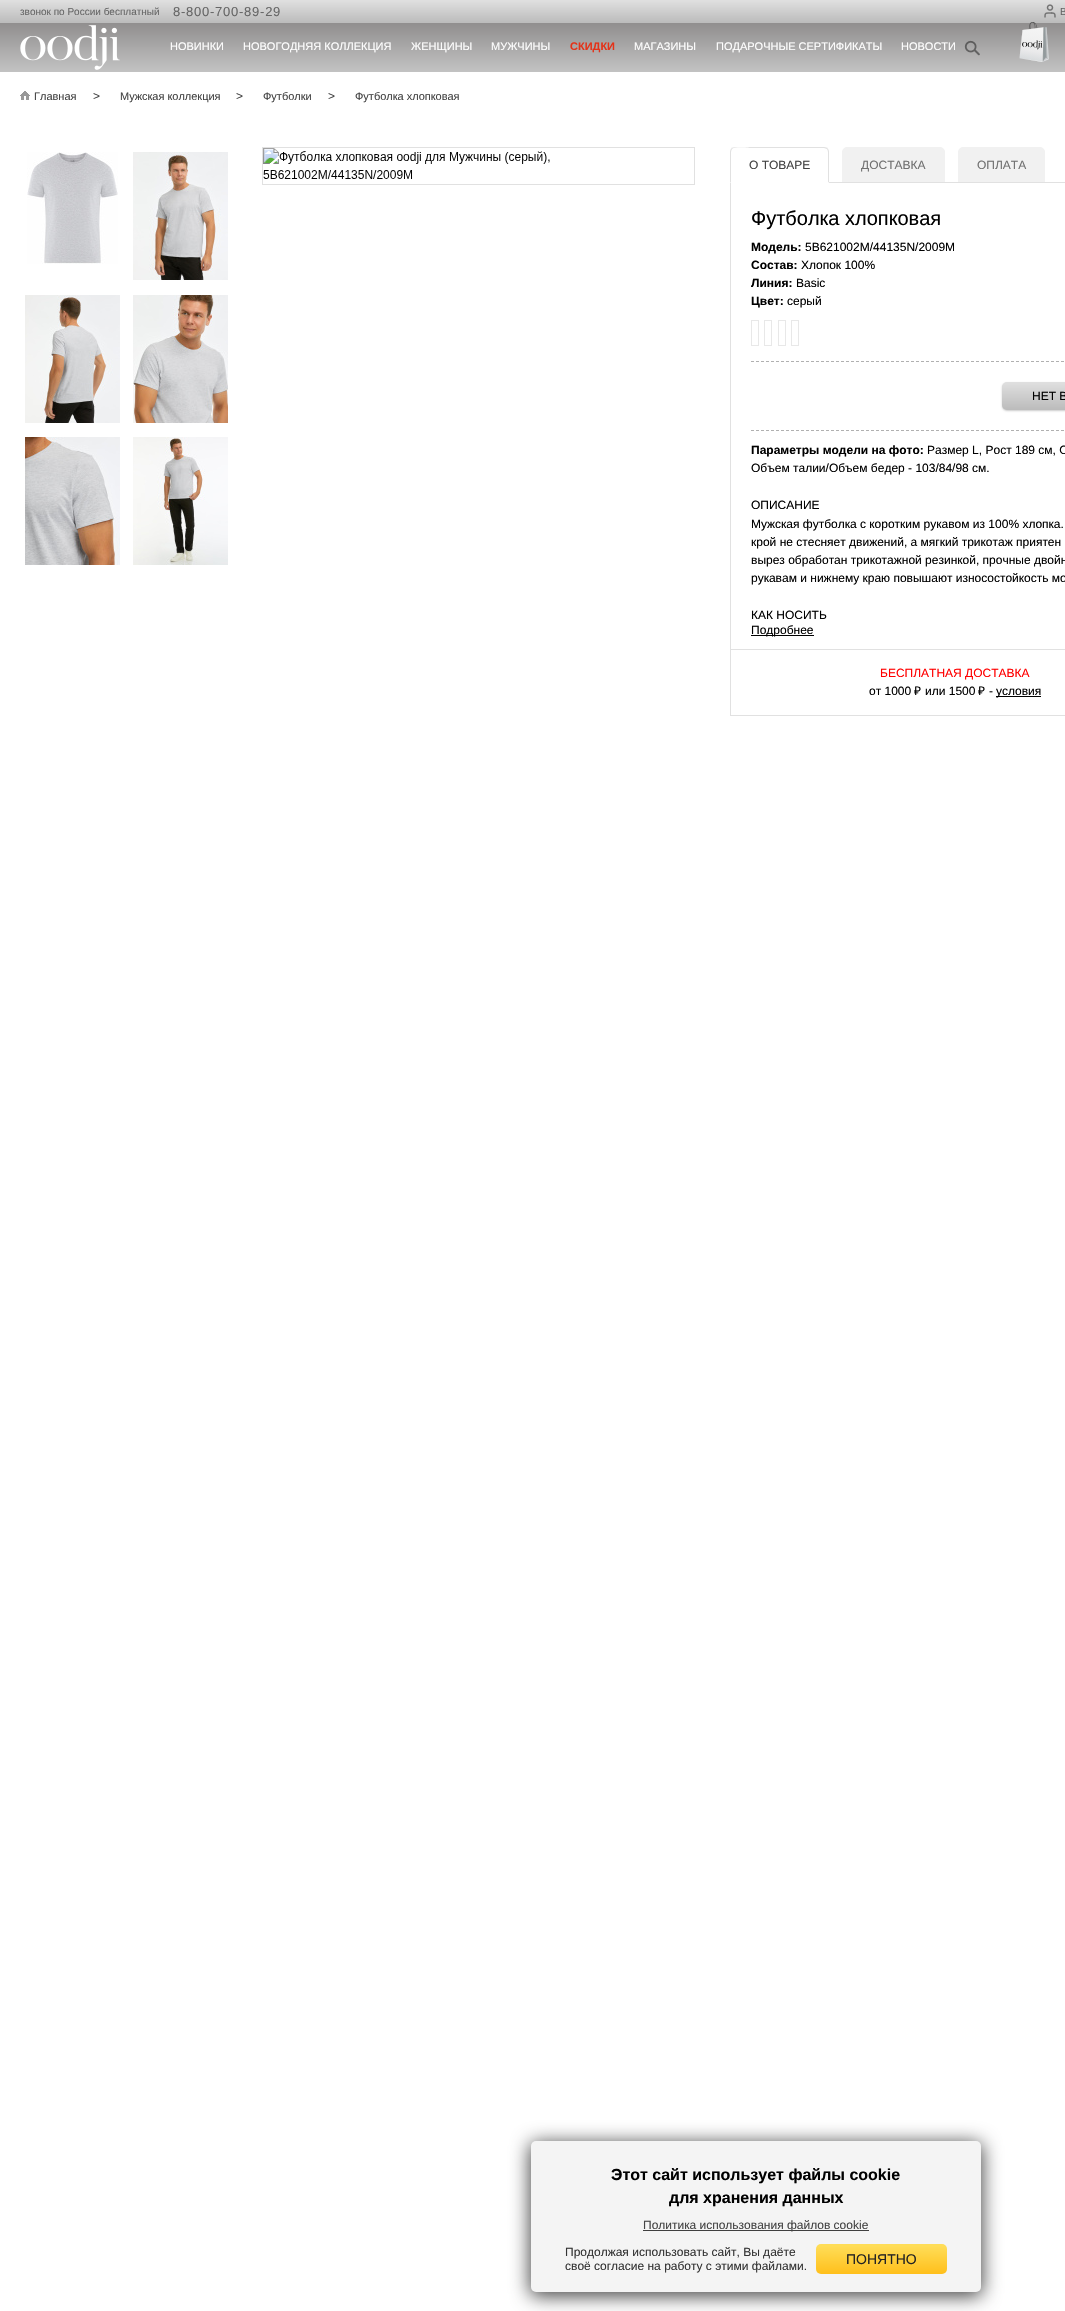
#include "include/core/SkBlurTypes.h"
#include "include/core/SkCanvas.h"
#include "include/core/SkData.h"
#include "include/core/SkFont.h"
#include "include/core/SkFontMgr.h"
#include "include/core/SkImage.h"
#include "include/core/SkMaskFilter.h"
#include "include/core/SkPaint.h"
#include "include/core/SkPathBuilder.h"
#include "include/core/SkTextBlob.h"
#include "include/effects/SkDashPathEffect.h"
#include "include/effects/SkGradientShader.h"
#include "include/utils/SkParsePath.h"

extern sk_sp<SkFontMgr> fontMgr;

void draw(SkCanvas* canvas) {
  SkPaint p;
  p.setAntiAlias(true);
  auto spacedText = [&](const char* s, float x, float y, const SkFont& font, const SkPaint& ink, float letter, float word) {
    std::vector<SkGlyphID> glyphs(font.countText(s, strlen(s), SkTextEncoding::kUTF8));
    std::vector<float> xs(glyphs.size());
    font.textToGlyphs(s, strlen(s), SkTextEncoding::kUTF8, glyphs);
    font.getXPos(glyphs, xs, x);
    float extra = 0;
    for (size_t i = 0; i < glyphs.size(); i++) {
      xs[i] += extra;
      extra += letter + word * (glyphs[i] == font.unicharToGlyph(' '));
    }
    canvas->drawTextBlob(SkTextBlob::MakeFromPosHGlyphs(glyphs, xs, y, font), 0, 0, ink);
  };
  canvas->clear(SK_ColorWHITE);
  {
    const SkColor colors[] = {SkColorSetRGB(224, 224, 224), SkColorSetRGB(187, 187, 187)};
    const float stops[] = {0, 1};
    const SkPoint ends[] = {{600, 0}, {600, 23}};
    p.setShader(SkGradientShader::MakeLinear(ends, colors, stops, 2, SkTileMode::kClamp));
    p.setAlpha(255);
  }
  canvas->drawRect(SkRect::MakeLTRB(0, 0, 1065, 23), p);
  canvas->drawImageRect(SkImages::DeferredFromEncodedData(SkData::MakeFromFileName("images/1.png")), SkRect::MakeLTRB(1044, 4, 1056, 18), SkSamplingOptions());
  {
    const SkColor colors[] = {SkColorSetRGB(144, 142, 142), SkColorSetRGB(195, 195, 195)};
    const float stops[] = {0, 1};
    const SkPoint ends[] = {{604, 23}, {604, 72}};
    p.setShader(SkGradientShader::MakeLinear(ends, colors, stops, 2, SkTileMode::kClamp));
    p.setAlpha(255);
  }
  canvas->drawRect(SkRect::MakeLTRB(0, 23, 1065, 72), p);
  canvas->drawImageRect(SkImages::DeferredFromEncodedData(SkData::MakeFromFileName("images/2.png")), SkRect::MakeLTRB(20, 25, 120, 70), SkSamplingOptions());
  canvas->drawImageRect(SkImages::DeferredFromEncodedData(SkData::MakeFromFileName("images/3.png")), SkRect::MakeLTRB(964, 40, 980, 56), SkSamplingOptions());
  canvas->drawImageRect(SkImages::DeferredFromEncodedData(SkData::MakeFromFileName("images/4.png")), SkRect::MakeLTRB(1019, 22, 1049, 62), SkSamplingOptions());
  canvas->drawImageRect(SkImages::DeferredFromEncodedData(SkData::MakeFromFileName("images/5.png")), SkRect::MakeLTRB(20, 91, 30, 100), SkSamplingOptions());
  canvas->drawImageRect(SkImages::DeferredFromEncodedData(SkData::MakeFromFileName("images/6.png")), SkRect::MakeLTRB(27, 152, 118, 264), SkSamplingOptions());
  canvas->drawImageRect(SkImages::DeferredFromEncodedData(SkData::MakeFromFileName("images/7.png")), SkRect::MakeLTRB(133, 152, 228, 280), SkSamplingOptions());
  canvas->drawImageRect(SkImages::DeferredFromEncodedData(SkData::MakeFromFileName("images/8.png")), SkRect::MakeLTRB(25, 295, 120, 423), SkSamplingOptions());
  canvas->drawImageRect(SkImages::DeferredFromEncodedData(SkData::MakeFromFileName("images/9.png")), SkRect::MakeLTRB(133, 295, 228, 423), SkSamplingOptions());
  canvas->drawImageRect(SkImages::DeferredFromEncodedData(SkData::MakeFromFileName("images/10.png")), SkRect::MakeLTRB(25, 437, 120, 565), SkSamplingOptions());
  canvas->drawImageRect(SkImages::DeferredFromEncodedData(SkData::MakeFromFileName("images/11.png")), SkRect::MakeLTRB(133, 437, 228, 565), SkSamplingOptions());
  p.setStyle(SkPaint::kStroke_Style);
  p.setStrokeWidth(1);
  p.setShader(nullptr);
  p.setColor(SkColorSetRGB(225, 225, 225));
  canvas->drawRect(SkRect::MakeLTRB(262.5f, 147.5f, 694.5f, 184.5f), p);
  canvas->drawImageRect(SkImages::DeferredFromEncodedData(SkData::MakeFromFileName("images/12.png")), SkRect::MakeLTRB(263, 148, 550, 179), SkSamplingOptions());
  p.setStyle(SkPaint::kFill_Style);
  canvas->drawRect(SkRect::MakeLTRB(730, 182, 731, 361), p);
  p.setColor(SK_ColorWHITE);
  canvas->drawPath(SkPathBuilder().moveTo(735, 147).lineTo(824, 147).cubicTo(827, 147, 829, 149, 829, 152).lineTo(829, 183).lineTo(730, 183).lineTo(730, 152).cubicTo(730, 149, 732, 147, 735, 147).close().detach(), p);
  p.setColor(SkColorSetRGB(225, 225, 225));
  canvas->drawPath(SkPathBuilder().moveTo(735, 147).cubicTo(734, 147, 732, 148, 731, 148).lineTo(732, 149).cubicTo(736, 146, 749, 148, 750, 148).lineTo(824, 148).lineTo(827, 149).lineTo(828, 148).cubicTo(827, 148, 826, 147, 824, 147).close().detach(), p);
  canvas->drawPath(SkPathBuilder().moveTo(829, 183).lineTo(829, 152).cubicTo(829, 150.5f, 828.5f, 149, 827.5f, 148.5f).lineTo(827, 149).cubicTo(827.5f, 150, 828, 151, 828, 152).lineTo(828, 182).close().detach(), p);
  p.setColor(SK_ColorWHITE);
  canvas->drawPath(SkPathBuilder().moveTo(829, 183).lineTo(828, 182).lineTo(731, 182).lineTo(730, 183).close().detach(), p);
  p.setColor(SkColorSetRGB(225, 225, 225));
  canvas->drawPath(SkPathBuilder().moveTo(730, 183).lineTo(731, 182).lineTo(731, 152).cubicTo(731, 151, 731.5f, 150, 732, 149).lineTo(731.5f, 148.5f).cubicTo(730.5f, 149, 730, 150.5f, 730, 152).close().detach(), p);
  p.setColor(SkColorSetRGB(241, 241, 241));
  canvas->drawPath(SkPathBuilder().moveTo(847, 147.5f).lineTo(940, 147.5f).cubicTo(942.5f, 147.5f, 944.5f, 149.5f, 944.5f, 152).lineTo(944.5f, 182.5f).lineTo(842.5f, 182.5f).lineTo(842.5f, 152).cubicTo(842.5f, 149.5f, 844.5f, 147.5f, 847, 147.5f).close().detach(), p);
  p.setStyle(SkPaint::kStroke_Style);
  canvas->drawPath(SkPathBuilder().moveTo(847, 147.5f).lineTo(940, 147.5f).cubicTo(942.5f, 147.5f, 944.5f, 149.5f, 944.5f, 152).lineTo(944.5f, 182.5f).lineTo(842.5f, 182.5f).lineTo(842.5f, 152).cubicTo(842.5f, 149.5f, 844.5f, 147.5f, 847, 147.5f).close().detach(), p);
  p.setStyle(SkPaint::kFill_Style);
  canvas->drawPath(SkPathBuilder().moveTo(963, 147.5f).lineTo(1040, 147.5f).cubicTo(1042.5f, 147.5f, 1044.5f, 149.5f, 1044.5f, 152).lineTo(1044.5f, 182.5f).lineTo(958.5f, 182.5f).lineTo(958.5f, 152).cubicTo(958.5f, 149.5f, 960.5f, 147.5f, 963, 147.5f).close().detach(), p);
  p.setStyle(SkPaint::kStroke_Style);
  canvas->drawPath(SkPathBuilder().moveTo(963, 147.5f).lineTo(1040, 147.5f).cubicTo(1042.5f, 147.5f, 1044.5f, 149.5f, 1044.5f, 152).lineTo(1044.5f, 182.5f).lineTo(958.5f, 182.5f).lineTo(958.5f, 152).cubicTo(958.5f, 149.5f, 960.5f, 147.5f, 963, 147.5f).close().detach(), p);
  p.setStyle(SkPaint::kFill_Style);
  p.setColor(SkColorSetRGB(225, 225, 225));
  canvas->drawRect(SkRect::MakeLTRB(829, 182, 1065, 183), p);
  p.setStyle(SkPaint::kStroke_Style);
  p.setColor(SkColorSetRGB(232, 232, 232));
  canvas->drawRect(SkRect::MakeLTRB(751.5f, 320.5f, 758.5f, 345.5f), p);
  canvas->drawRect(SkRect::MakeLTRB(764.5f, 320.5f, 771.5f, 345.5f), p);
  canvas->drawRect(SkRect::MakeLTRB(778.5f, 320.5f, 785.5f, 345.5f), p);
  canvas->drawRect(SkRect::MakeLTRB(791.5f, 320.5f, 798.5f, 345.5f), p);
  p.setStyle(SkPaint::kFill_Style);
  p.setColor(SkColorSetRGB(225, 225, 225));
  canvas->drawRect(SkRect::MakeLTRB(730, 715, 1065, 716), p);
  canvas->drawRect(SkRect::MakeLTRB(730, 649, 731, 716), p);
  canvas->drawRect(SkRect::MakeLTRB(730, 649, 1065, 650), p);
  canvas->drawRect(SkRect::MakeLTRB(730, 361, 731, 650), p);
  p.setStyle(SkPaint::kStroke_Style);
  p.setColor(SkColorSetRGB(176, 176, 176));
  p.setPathEffect(SkDashPathEffect::Make({{3, 2}}, 0));
  canvas->drawPath(SkPathBuilder().moveTo(751, 361.5f).lineTo(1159, 361.5f).detach(), p);
  p.setPathEffect(nullptr);
  p.setStyle(SkPaint::kFill_Style);
  p.setColor(SkColorSetARGB(51, 0, 0, 0));
  p.setMaskFilter(SkMaskFilter::MakeBlur(kNormal_SkBlurStyle, 1));
  canvas->drawRoundRect(SkRect::MakeLTRB(1002, 383, 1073, 411), 5, 5, p);
  p.setMaskFilter(nullptr);
  {
    const SkColor colors[] = {SkColorSetRGB(224, 224, 224), SkColorSetRGB(187, 187, 187)};
    const float stops[] = {0, 1};
    const SkPoint ends[] = {{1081, 382}, {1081, 410}};
    p.setShader(SkGradientShader::MakeLinear(ends, colors, stops, 2, SkTileMode::kClamp));
    p.setAlpha(255);
  }
  canvas->drawRoundRect(SkRect::MakeLTRB(1002, 382, 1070, 410), 5, 5, p);
  p.setStyle(SkPaint::kStroke_Style);
  p.setShader(nullptr);
  p.setColor(SkColorSetRGB(176, 176, 176));
  p.setPathEffect(SkDashPathEffect::Make({{3, 2}}, 0));
  canvas->drawPath(SkPathBuilder().moveTo(751, 430.5f).lineTo(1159, 430.5f).detach(), p);
  p.setPathEffect(nullptr);
  p.setStyle(SkPaint::kFill_Style);
  p.setColor(SK_ColorBLACK);
  canvas->drawRect(SkRect::MakeLTRB(751, 635, 814, 636), p);
  canvas->drawRect(SkRect::MakeLTRB(996, 696, 1041, 697), p);
  p.setColor(SkColorSetARGB(191, 0, 0, 0));
  p.setMaskFilter(SkMaskFilter::MakeBlur(kNormal_SkBlurStyle, 9.5f));
  canvas->drawRoundRect(SkRect::MakeLTRB(530, 2143, 982, 2296), 6, 6, p);
  p.setMaskFilter(nullptr);
  p.setColor(SkColorSetRGB(244, 244, 244));
  canvas->drawRoundRect(SkRect::MakeLTRB(531, 2141, 981, 2292), 5, 5, p);
  p.setColor(SkColorSetRGB(64, 64, 64));
  canvas->drawRect(SkRect::MakeLTRB(643, 2230, 869, 2231), p);
  {
    const SkColor colors[] = {SkColorSetRGB(255, 191, 27), SkColorSetRGB(255, 221, 87)};
    const float stops[] = {0, 0.93f};
    const SkPoint ends[] = {{882, 2274}, {882, 2244}};
    p.setShader(SkGradientShader::MakeLinear(ends, colors, stops, 2, SkTileMode::kClamp));
    p.setAlpha(255);
  }
  canvas->drawRoundRect(SkRect::MakeLTRB(816, 2244, 947, 2274), 5, 5, p);
  SkFont font1(fontMgr->matchFamilyStyle("Liberation Sans", SkFontStyle::Normal()), 10);
  font1.setSubpixel(true);
  p.setShader(nullptr);
  p.setColor(SkColorSetRGB(102, 102, 102));
  canvas->drawString("звонок по России бесплатный", 20, 15, font1, p);
  SkFont font2(fontMgr->matchFamilyStyle("Liberation Sans", SkFontStyle::Normal()), 13);
  font2.setSubpixel(true);
  spacedText("8-800-700-89-29", 173, 16, font2, p, 0.75f, 0);
  canvas->drawString("В", 1060, 15, font1, p);
  SkFont font3(fontMgr->matchFamilyStyle("Liberation Sans", SkFontStyle::Normal()), 11);
  font3.setSubpixel(true);
  p.setColor(SK_ColorWHITE);
  canvas->drawString("НОВИНКИ", 170, 50, font3, p);
  canvas->drawString("НОВОГОДНЯЯ КОЛЛЕКЦИЯ", 243, 50, font3, p);
  canvas->drawString("ЖЕНЩИНЫ", 411, 50, font3, p);
  canvas->drawString("МУЖЧИНЫ", 491, 50, font3, p);
  SkFont font4(fontMgr->matchFamilyStyle("Liberation Sans", SkFontStyle::Bold()), 11);
  font4.setSubpixel(true);
  p.setColor(SkColorSetRGB(228, 50, 24));
  canvas->drawString("СКИДКИ", 570, 50, font4, p);
  p.setColor(SK_ColorWHITE);
  canvas->drawString("МАГАЗИНЫ", 634, 50, font3, p);
  canvas->drawString("ПОДАРОЧНЫЕ СЕРТИФИКАТЫ", 716, 50, font3, p);
  canvas->drawString("НОВОСТИ", 901, 50, font3, p);
  p.setColor(SkColorSetRGB(67, 67, 67));
  canvas->drawString("Главная", 34, 100, font3, p);
  SkFont font5(fontMgr->matchFamilyStyle("Liberation Sans", SkFontStyle::Normal()), 12);
  font5.setSubpixel(true);
  canvas->drawString(">", 93, 100, font5, p);
  canvas->drawString("Мужская коллекция", 120, 100, font3, p);
  canvas->drawString(">", 236, 100, font5, p);
  canvas->drawString("Футболки", 263, 100, font3, p);
  canvas->drawString(">", 328, 100, font5, p);
  canvas->drawString("Футболка хлопковая", 355, 100, font3, p);
  canvas->drawString("О ТОВАРЕ", 749, 169, font5, p);
  p.setColor(SkColorSetRGB(113, 113, 113));
  canvas->drawString("ДОСТАВКА", 861, 169, font5, p);
  canvas->drawString("ОПЛАТА", 977, 169, font5, p);
  SkFont font6(fontMgr->matchFamilyStyle("Liberation Sans", SkFontStyle::Normal()), 20);
  font6.setSubpixel(true);
  p.setColor(SK_ColorBLACK);
  canvas->drawString("Футболка хлопковая", 751, 225, font6, p);
  SkFont font7(fontMgr->matchFamilyStyle("Liberation Sans", SkFontStyle::Bold()), 12);
  font7.setSubpixel(true);
  canvas->drawString("Модель:", 751, 251, font7, p);
  canvas->drawString("5B621002M/44135N/2009M", 805, 251, font5, p);
  canvas->drawString("Состав:", 751, 269, font7, p);
  canvas->drawString("Хлопок 100%", 801, 269, font5, p);
  canvas->drawString("Линия:", 751, 287, font7, p);
  canvas->drawString("Basic", 796, 287, font5, p);
  canvas->drawString("Цвет:", 751, 305, font7, p);
  canvas->drawString("серый", 787, 305, font5, p);
  canvas->drawString("НЕТ В", 1032, 400, font5, p);
  canvas->drawString("Параметры модели на фото:", 751, 454, font7, p);
  canvas->drawString("Размер L, Рост 189 см, О", 927, 454, font5, p);
  canvas->drawString("Объем талии/Объем бедер - 103/84/98 см.", 751, 472, font5, p);
  canvas->drawString("ОПИСАНИЕ", 751, 509, font5, p);
  canvas->drawString("Мужская футболка с коротким рукавом из 100% хлопка.", 751, 528, font5, p);
  canvas->drawString("крой не стесняет движений, а мягкий трикотаж приятен", 751, 546, font5, p);
  canvas->drawString("вырез обработан трикотажной резинкой, прочные двойн", 751, 564, font5, p);
  canvas->drawString("рукавам и нижнему краю повышают износостойкость мо", 751, 582, font5, p);
  canvas->drawString("КАК НОСИТЬ", 751, 619, font5, p);
  canvas->drawString("Подробнее", 751, 634, font5, p);
  p.setColor(SkColorSetRGB(255, 0, 0));
  canvas->drawString("БЕСПЛАТНАЯ ДОСТАВКА", 880, 677, font5, p);
  p.setColor(SK_ColorBLACK);
  canvas->drawString("от 1000", 869, 695, font5, p);
  SkFont font8(fontMgr->matchFamilyStyle("Noto Sans", SkFontStyle::Normal()), 12);
  font8.setSubpixel(true);
  canvas->drawString("₽", 914, 695, font8, p);
  canvas->drawString("или 1500", 925, 695, font5, p);
  canvas->drawString("₽", 978, 695, font8, p);
  canvas->drawString("-", 989, 695, font5, p);
  canvas->drawString("условия", 996, 695, font5, p);
  SkFont font9(fontMgr->matchFamilyStyle("Liberation Sans", SkFontStyle::Bold()), 16);
  font9.setSubpixel(true);
  canvas->drawString("Этот сайт использует файлы cookie", 611, 2180, font9, p);
  canvas->drawString("для хранения данных", 669, 2203, font9, p);
  p.setColor(SkColorSetRGB(67, 67, 67));
  canvas->drawString("Политика использования файлов cookie", 643, 2229, font5, p);
  p.setColor(SkColorSetRGB(52, 52, 52));
  canvas->drawString("Продолжая использовать сайт, Вы даёте", 565, 2256, font5, p);
  canvas->drawString("своё согласие на работу с этими файлами.", 565, 2270, font5, p);
  SkFont font10(fontMgr->matchFamilyStyle("Liberation Sans", SkFontStyle::Normal()), 14);
  font10.setSubpixel(true);
  p.setColor(SkColorSetRGB(35, 35, 35));
  canvas->drawString("ПОНЯТНО", 846, 2264, font10, p);
}
